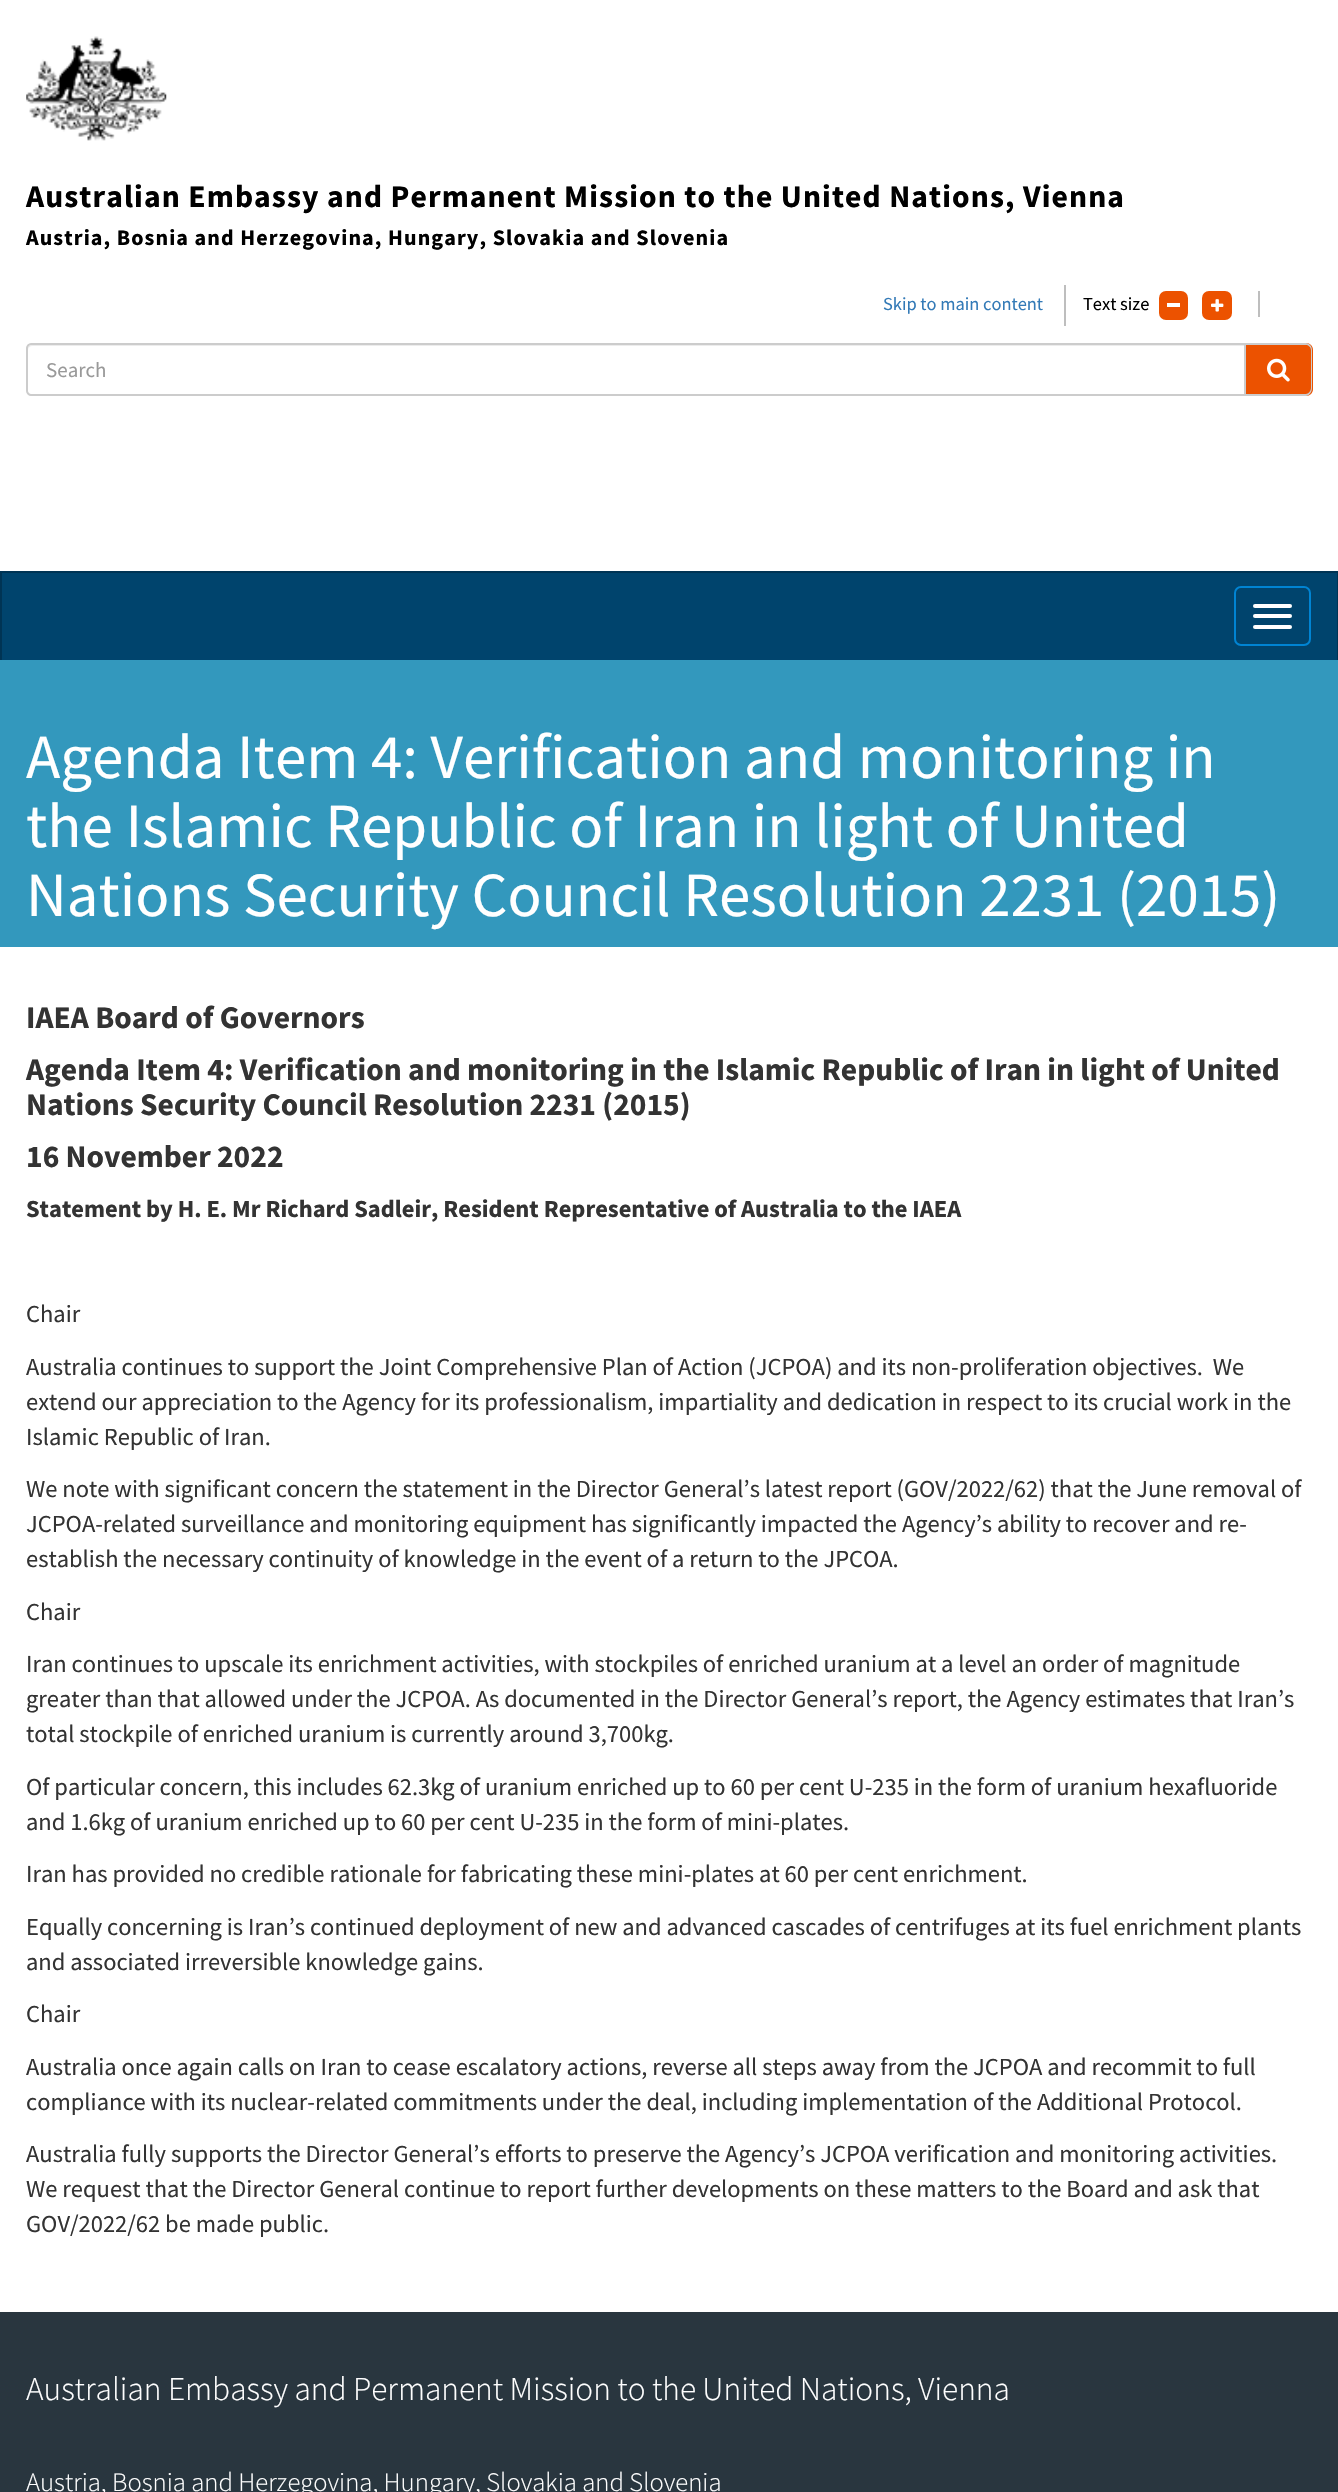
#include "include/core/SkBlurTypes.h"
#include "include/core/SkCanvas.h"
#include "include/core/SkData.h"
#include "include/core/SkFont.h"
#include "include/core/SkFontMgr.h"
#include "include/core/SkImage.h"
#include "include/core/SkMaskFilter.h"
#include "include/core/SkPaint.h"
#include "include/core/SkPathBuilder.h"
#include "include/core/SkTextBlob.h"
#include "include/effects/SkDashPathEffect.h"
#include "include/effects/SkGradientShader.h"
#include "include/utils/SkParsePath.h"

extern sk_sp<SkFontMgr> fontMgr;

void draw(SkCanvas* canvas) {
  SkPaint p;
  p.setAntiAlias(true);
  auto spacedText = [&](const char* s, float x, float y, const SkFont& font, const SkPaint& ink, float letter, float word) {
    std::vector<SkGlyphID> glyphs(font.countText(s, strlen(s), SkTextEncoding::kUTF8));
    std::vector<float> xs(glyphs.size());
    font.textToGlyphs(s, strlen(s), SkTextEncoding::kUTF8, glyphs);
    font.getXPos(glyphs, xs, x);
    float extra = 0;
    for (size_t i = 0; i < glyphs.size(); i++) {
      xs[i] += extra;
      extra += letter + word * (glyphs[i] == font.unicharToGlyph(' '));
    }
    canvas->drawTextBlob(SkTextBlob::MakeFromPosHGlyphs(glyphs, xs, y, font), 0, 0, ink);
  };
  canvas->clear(SK_ColorWHITE);
  canvas->drawImageRect(SkImages::DeferredFromEncodedData(SkData::MakeFromFileName("images/1.png")), SkRect::MakeLTRB(26, 36, 167, 141), SkSamplingOptions());
  p.setColor(SkColorSetRGB(190, 190, 190));
  canvas->drawRect(SkRect::MakeLTRB(1064, 285, 1066, 326), p);
  p.setColor(SkColorSetRGB(236, 82, 0));
  canvas->drawRoundRect(SkRect::MakeLTRB(1159, 291, 1188, 320), 7, 7, p);
  p.setColor(SK_ColorWHITE);
  canvas->drawRect(SkRect::MakeLTRB(1167, 303, 1180, 307), p);
  p.setColor(SkColorSetRGB(236, 82, 0));
  canvas->drawRoundRect(SkRect::MakeLTRB(1202, 291, 1232, 320), 7, 7, p);
  canvas->drawImageRect(SkImages::DeferredFromEncodedData(SkData::MakeFromFileName("images/2.png")), SkRect::MakeLTRB(1211, 299, 1224, 312), SkSamplingOptions());
  p.setColor(SkColorSetRGB(190, 190, 190));
  canvas->drawRect(SkRect::MakeLTRB(1258, 291, 1260, 317), p);
  p.setColor(SkColorSetRGB(236, 236, 236));
  canvas->drawPath(SkPathBuilder().moveTo(32, 346).lineTo(1244, 346).lineTo(1244, 345).lineTo(32, 345).cubicTo(29, 345, 28, 347, 28, 350).cubicTo(28, 348, 30, 346, 32, 346).close().detach(), p);
  p.setStyle(SkPaint::kStroke_Style);
  p.setStrokeWidth(2);
  p.setColor(SkColorSetRGB(204, 204, 204));
  canvas->drawPath(SkPathBuilder().moveTo(31, 344).lineTo(1245, 344).lineTo(1245, 395).lineTo(31, 395).cubicTo(29, 395, 27, 393, 27, 391).lineTo(27, 348).cubicTo(27, 346, 29, 344, 31, 344).close().detach(), p);
  p.setStyle(SkPaint::kFill_Style);
  p.setColor(SkColorSetRGB(236, 82, 0));
  canvas->drawPath(SkPathBuilder().moveTo(1246, 343).lineTo(1306, 343).cubicTo(1310, 343, 1313, 346, 1313, 350).lineTo(1313, 389).cubicTo(1313, 393, 1310, 396, 1306, 396).lineTo(1246, 396).close().detach(), p);
  p.setColor(SkColorSetRGB(204, 204, 204));
  canvas->drawPath(SkPathBuilder(SkPathFillType::kEvenOdd).moveTo(1246, 343).lineTo(1306, 343).cubicTo(1309, 343, 1312, 346, 1312, 350).lineTo(1312, 388).cubicTo(1312, 392, 1309, 396, 1306, 396).lineTo(1246, 396).close().moveTo(1246, 345).lineTo(1306, 345).cubicTo(1308, 345, 1311, 347, 1311, 350).lineTo(1311, 388).cubicTo(1311, 391, 1308, 394, 1306, 394).lineTo(1246, 394).close().detach(), p);
  canvas->drawImageRect(SkImages::DeferredFromEncodedData(SkData::MakeFromFileName("images/3.png")), SkRect::MakeLTRB(1267, 358, 1290, 382), SkSamplingOptions());
  p.setColor(SkColorSetRGB(0, 68, 109));
  canvas->drawRect(SkRect::MakeLTRB(2, 573, 1337, 660), p);
  p.setColor(SkColorSetRGB(0, 52, 84));
  canvas->drawRect(SkRect::MakeLTRB(0, 571, 1338, 573), p);
  canvas->drawRect(SkRect::MakeLTRB(1337, 571, 1338, 660), p);
  canvas->drawRect(SkRect::MakeLTRB(0, 571, 2, 660), p);
  p.setStyle(SkPaint::kStroke_Style);
  p.setColor(SkColorSetRGB(0, 132, 211));
  canvas->drawRoundRect(SkRect::MakeLTRB(1235, 587, 1310, 645), 6, 6, p);
  p.setStyle(SkPaint::kFill_Style);
  p.setColor(SK_ColorWHITE);
  canvas->drawRoundRect(SkRect::MakeLTRB(1253, 604, 1292, 608), 2, 2, p);
  canvas->drawRoundRect(SkRect::MakeLTRB(1253, 614, 1292, 618), 2, 2, p);
  canvas->drawRoundRect(SkRect::MakeLTRB(1253, 625, 1292, 629), 2, 2, p);
  p.setColor(SkColorSetRGB(51, 152, 189));
  canvas->drawRect(SkRect::MakeLTRB(0, 660, 1338, 947), p);
  p.setColor(SkColorSetRGB(41, 54, 63));
  canvas->drawRect(SkRect::MakeLTRB(0, 2312, 1338, 2492), p);
  SkFont font1(fontMgr->matchFamilyStyle("Source Sans Pro", SkFontStyle::Bold()), 31.6f);
  font1.setSubpixel(true);
  p.setColor(SK_ColorBLACK);
  spacedText("Australian Embassy and Permanent Mission to the United Nations, Vienna", 26, 207, font1, p, 1.1f, 0);
  SkFont font2(fontMgr->matchFamilyStyle("Source Sans Pro", SkFontStyle::Bold()), 22.05f);
  font2.setSubpixel(true);
  spacedText("Austria, Bosnia and Herzegovina, Hungary, Slovakia and Slovenia", 26, 245, font2, p, 1.1f, 0);
  SkFont font3(fontMgr->matchFamilyStyle("Source Sans Pro", SkFontStyle::Normal()), 18.4f);
  font3.setSubpixel(true);
  p.setColor(SkColorSetRGB(51, 122, 183));
  canvas->drawString("Skip to main content", 883, 310, font3, p);
  p.setColor(SK_ColorBLACK);
  canvas->drawString("Text size", 1083, 310, font3, p);
  SkFont font4(fontMgr->matchFamilyStyle("Source Sans Pro", SkFontStyle::Normal()), 21);
  font4.setSubpixel(true);
  p.setColor(SkColorSetRGB(153, 153, 153));
  canvas->drawString("Search", 46, 377, font4, p);
  SkFont font5(fontMgr->matchFamilyStyle("Source Sans Pro", SkFontStyle::Normal()), 63);
  font5.setSubpixel(true);
  p.setColor(SK_ColorWHITE);
  canvas->drawString("Agenda Item 4: Verification and monitoring in", 26, 778, font5, p);
  canvas->drawString("the Islamic Republic of Iran in light of United", 26, 847, font5, p);
  canvas->drawString("Nations Security Council Resolution 2231 (2015)", 26, 916, font5, p);
  SkFont font6(fontMgr->matchFamilyStyle("Source Sans Pro", SkFontStyle::Bold()), 31.5f);
  font6.setSubpixel(true);
  p.setColor(SkColorSetRGB(51, 51, 51));
  canvas->drawString("IAEA Board of Governors", 26, 1028, font6, p);
  canvas->drawString("Agenda Item 4: Verification and monitoring in the Islamic Republic of Iran in light of United", 26, 1080, font6, p);
  canvas->drawString("Nations Security Council Resolution 2231 (2015)", 26, 1115, font6, p);
  canvas->drawString("16 November 2022", 26, 1167, font6, p);
  SkFont font7(fontMgr->matchFamilyStyle("Source Sans Pro", SkFontStyle::Bold()), 24.5f);
  font7.setSubpixel(true);
  canvas->drawString("Statement by H. E. Mr Richard Sadleir, Resident Representative of Australia to the IAEA", 26, 1217, font7, p);
  SkFont font8(fontMgr->matchFamilyStyle("Source Sans Pro", SkFontStyle::Normal()), 24.5f);
  font8.setSubpixel(true);
  canvas->drawString("Chair", 26, 1322, font8, p);
  canvas->drawString("Australia continues to support the Joint Comprehensive Plan of Action (JCPOA) and its non-proliferation objectives.  We", 26, 1375, font8, p);
  canvas->drawString("extend our appreciation to the Agency for its professionalism, impartiality and dedication in respect to its crucial work in the", 26, 1410, font8, p);
  canvas->drawString("Islamic Republic of Iran.", 26, 1445, font8, p);
  canvas->drawString("We note with significant concern the statement in the Director General’s latest report (GOV/2022/62) that the June removal of", 26, 1497, font8, p);
  canvas->drawString("JCPOA-related surveillance and monitoring equipment has significantly impacted the Agency’s ability to recover and re-", 26, 1532, font8, p);
  canvas->drawString("establish the necessary continuity of knowledge in the event of a return to the JPCOA.", 26, 1567, font8, p);
  canvas->drawString("Chair", 26, 1620, font8, p);
  canvas->drawString("Iran continues to upscale its enrichment activities, with stockpiles of enriched uranium at a level an order of magnitude", 26, 1672, font8, p);
  canvas->drawString("greater than that allowed under the JCPOA. As documented in the Director General’s report, the Agency estimates that Iran’s", 26, 1707, font8, p);
  canvas->drawString("total stockpile of enriched uranium is currently around 3,700kg.", 26, 1742, font8, p);
  canvas->drawString("Of particular concern, this includes 62.3kg of uranium enriched up to 60 per cent U-235 in the form of uranium hexafluoride", 26, 1795, font8, p);
  canvas->drawString("and 1.6kg of uranium enriched up to 60 per cent U-235 in the form of mini-plates.", 26, 1830, font8, p);
  canvas->drawString("Iran has provided no credible rationale for fabricating these mini-plates at 60 per cent enrichment.", 26, 1882, font8, p);
  canvas->drawString("Equally concerning is Iran’s continued deployment of new and advanced cascades of centrifuges at its fuel enrichment plants", 26, 1935, font8, p);
  canvas->drawString("and associated irreversible knowledge gains.", 26, 1970, font8, p);
  canvas->drawString("Chair", 26, 2022, font8, p);
  canvas->drawString("Australia once again calls on Iran to cease escalatory actions, reverse all steps away from the JCPOA and recommit to full", 26, 2075, font8, p);
  canvas->drawString("compliance with its nuclear-related commitments under the deal, including implementation of the Additional Protocol.", 26, 2110, font8, p);
  canvas->drawString("Australia fully supports the Director General’s efforts to preserve the Agency’s JCPOA verification and monitoring activities.", 26, 2162, font8, p);
  canvas->drawString("We request that the Director General continue to report further developments on these matters to the Board and ask that", 26, 2197, font8, p);
  canvas->drawString("GOV/2022/62 be made public.", 26, 2232, font8, p);
  SkFont font9(fontMgr->matchFamilyStyle("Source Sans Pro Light", SkFontStyle(300, SkFontStyle::kNormal_Width, SkFontStyle::kUpright_Slant)), 33.3f);
  font9.setSubpixel(true);
  p.setColor(SK_ColorWHITE);
  spacedText("Australian Embassy and Permanent Mission to the United Nations, Vienna", 26, 2400, font9, p, 0, -0.25f);
  SkFont font10(fontMgr->matchFamilyStyle("Source Sans Pro Light", SkFontStyle(300, SkFontStyle::kNormal_Width, SkFontStyle::kUpright_Slant)), 26.65f);
  font10.setSubpixel(true);
  canvas->drawString("Austria, Bosnia and Herzegovina, Hungary, Slovakia and Slovenia", 26, 2491, font10, p);
}
